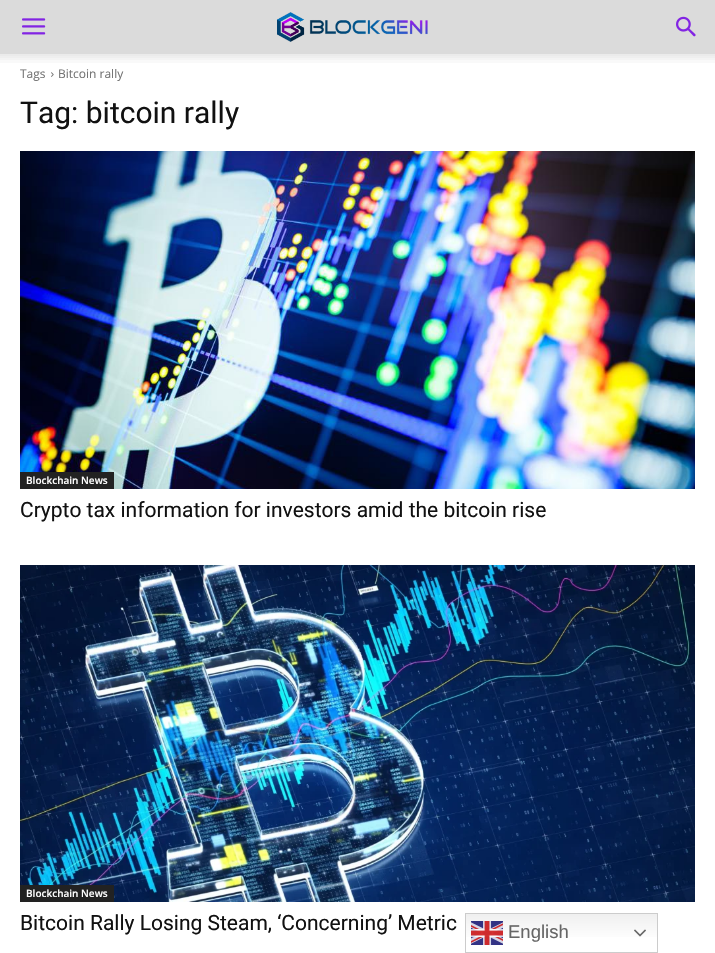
#include "include/core/SkBlurTypes.h"
#include "include/core/SkCanvas.h"
#include "include/core/SkData.h"
#include "include/core/SkFont.h"
#include "include/core/SkFontMgr.h"
#include "include/core/SkImage.h"
#include "include/core/SkMaskFilter.h"
#include "include/core/SkPaint.h"
#include "include/core/SkPathBuilder.h"
#include "include/core/SkTextBlob.h"
#include "include/effects/SkDashPathEffect.h"
#include "include/effects/SkGradientShader.h"
#include "include/utils/SkParsePath.h"

extern sk_sp<SkFontMgr> fontMgr;

void draw(SkCanvas* canvas) {
  SkPaint p;
  p.setAntiAlias(true);
  canvas->clear(SK_ColorWHITE);
  p.setColor(SkColorSetRGB(219, 219, 219));
  canvas->drawRect(SkRect::MakeLTRB(0, 0, 715, 54), p);
  canvas->drawImageRect(SkImages::DeferredFromEncodedData(SkData::MakeFromFileName("images/1.png")), SkRect::MakeLTRB(22, 18, 46, 35), SkSamplingOptions());
  canvas->drawImageRect(SkImages::DeferredFromEncodedData(SkData::MakeFromFileName("images/2.png")), SkRect::MakeLTRB(277, 12, 428, 42), SkSamplingOptions());
  canvas->drawImageRect(SkImages::DeferredFromEncodedData(SkData::MakeFromFileName("images/3.png")), SkRect::MakeLTRB(676, 16, 696, 37), SkSamplingOptions());
  canvas->drawImageRect(SkImages::DeferredFromEncodedData(SkData::MakeFromFileName("images/4.png")), SkRect::MakeLTRB(0, 54, 715, 63), SkSamplingOptions());
  canvas->drawImageRect(SkImages::DeferredFromEncodedData(SkData::MakeFromFileName("images/5.png")), SkRect::MakeLTRB(51, 72, 54, 77), SkSamplingOptions());
  canvas->drawImageRect(SkImages::DeferredFromEncodedData(SkData::MakeFromFileName("images/6.png")), SkRect::MakeLTRB(20, 151, 695, 489), SkSamplingOptions());
  p.setColor(SkColorSetRGB(34, 34, 34));
  canvas->drawRect(SkRect::MakeLTRB(20, 472, 114, 489), p);
  canvas->drawImageRect(SkImages::DeferredFromEncodedData(SkData::MakeFromFileName("images/7.png")), SkRect::MakeLTRB(20, 565, 695, 902), SkSamplingOptions());
  canvas->drawRect(SkRect::MakeLTRB(20, 885, 114, 902), p);
  {
    const SkColor colors[] = {SkColorSetRGB(239, 239, 239), SK_ColorWHITE};
    const float stops[] = {0, 0.7f};
    const SkPoint ends[] = {{562, 913}, {562, 953}};
    p.setShader(SkGradientShader::MakeLinear(ends, colors, stops, 2, SkTileMode::kClamp));
    p.setAlpha(255);
  }
  canvas->drawRect(SkRect::MakeLTRB(466, 914, 657, 937), p);
  p.setStyle(SkPaint::kStroke_Style);
  p.setStrokeWidth(1);
  p.setShader(nullptr);
  p.setColor(SkColorSetRGB(204, 204, 204));
  canvas->drawRect(SkRect::MakeLTRB(465.5f, 913.5f, 657.5f, 952.5f), p);
  canvas->drawImageRect(SkImages::DeferredFromEncodedData(SkData::MakeFromFileName("images/8.png")), SkRect::MakeLTRB(471, 921, 503, 945), SkSamplingOptions());
  canvas->drawImageRect(SkImages::DeferredFromEncodedData(SkData::MakeFromFileName("images/9.png")), SkRect::MakeLTRB(634, 929, 646, 937), SkSamplingOptions());
  SkFont font1(fontMgr->matchFamilyStyle("Open Sans", SkFontStyle::Normal()), 12);
  font1.setSubpixel(true);
  p.setStyle(SkPaint::kFill_Style);
  p.setColor(SkColorSetRGB(116, 116, 116));
  canvas->drawString("Tags", 20, 78, font1, p);
  canvas->drawString("Bitcoin rally", 58, 78, font1, p);
  SkFont font2(fontMgr->matchFamilyStyle("Roboto", SkFontStyle::Normal()), 30);
  font2.setSubpixel(true);
  p.setColor(SkColorSetRGB(17, 17, 17));
  canvas->drawString("Tag: bitcoin rally", 20, 123, font2, p);
  SkFont font3(fontMgr->matchFamilyStyle("Open Sans", SkFontStyle(600, SkFontStyle::kNormal_Width, SkFontStyle::kUpright_Slant)), 10);
  font3.setSubpixel(true);
  p.setColor(SK_ColorWHITE);
  canvas->drawString("Blockchain News", 26, 484, font3, p);
  SkFont font4(fontMgr->matchFamilyStyle("Roboto", SkFontStyle::Normal()), 21);
  font4.setSubpixel(true);
  p.setColor(SkColorSetRGB(17, 17, 17));
  canvas->drawString("Crypto tax information for investors amid the bitcoin rise", 20, 517, font4, p);
  p.setColor(SK_ColorWHITE);
  canvas->drawString("Blockchain News", 26, 897, font3, p);
  p.setColor(SkColorSetRGB(17, 17, 17));
  canvas->drawString("Bitcoin Rally Losing Steam, ‘Concerning’ Metric", 20, 930, font4, p);
  SkFont font5(fontMgr->matchFamilyStyle("Liberation Sans", SkFontStyle::Normal()), 18.5f);
  font5.setSubpixel(true);
  p.setColor(SkColorSetRGB(102, 102, 102));
  canvas->drawString("English", 508, 938, font5, p);
}
